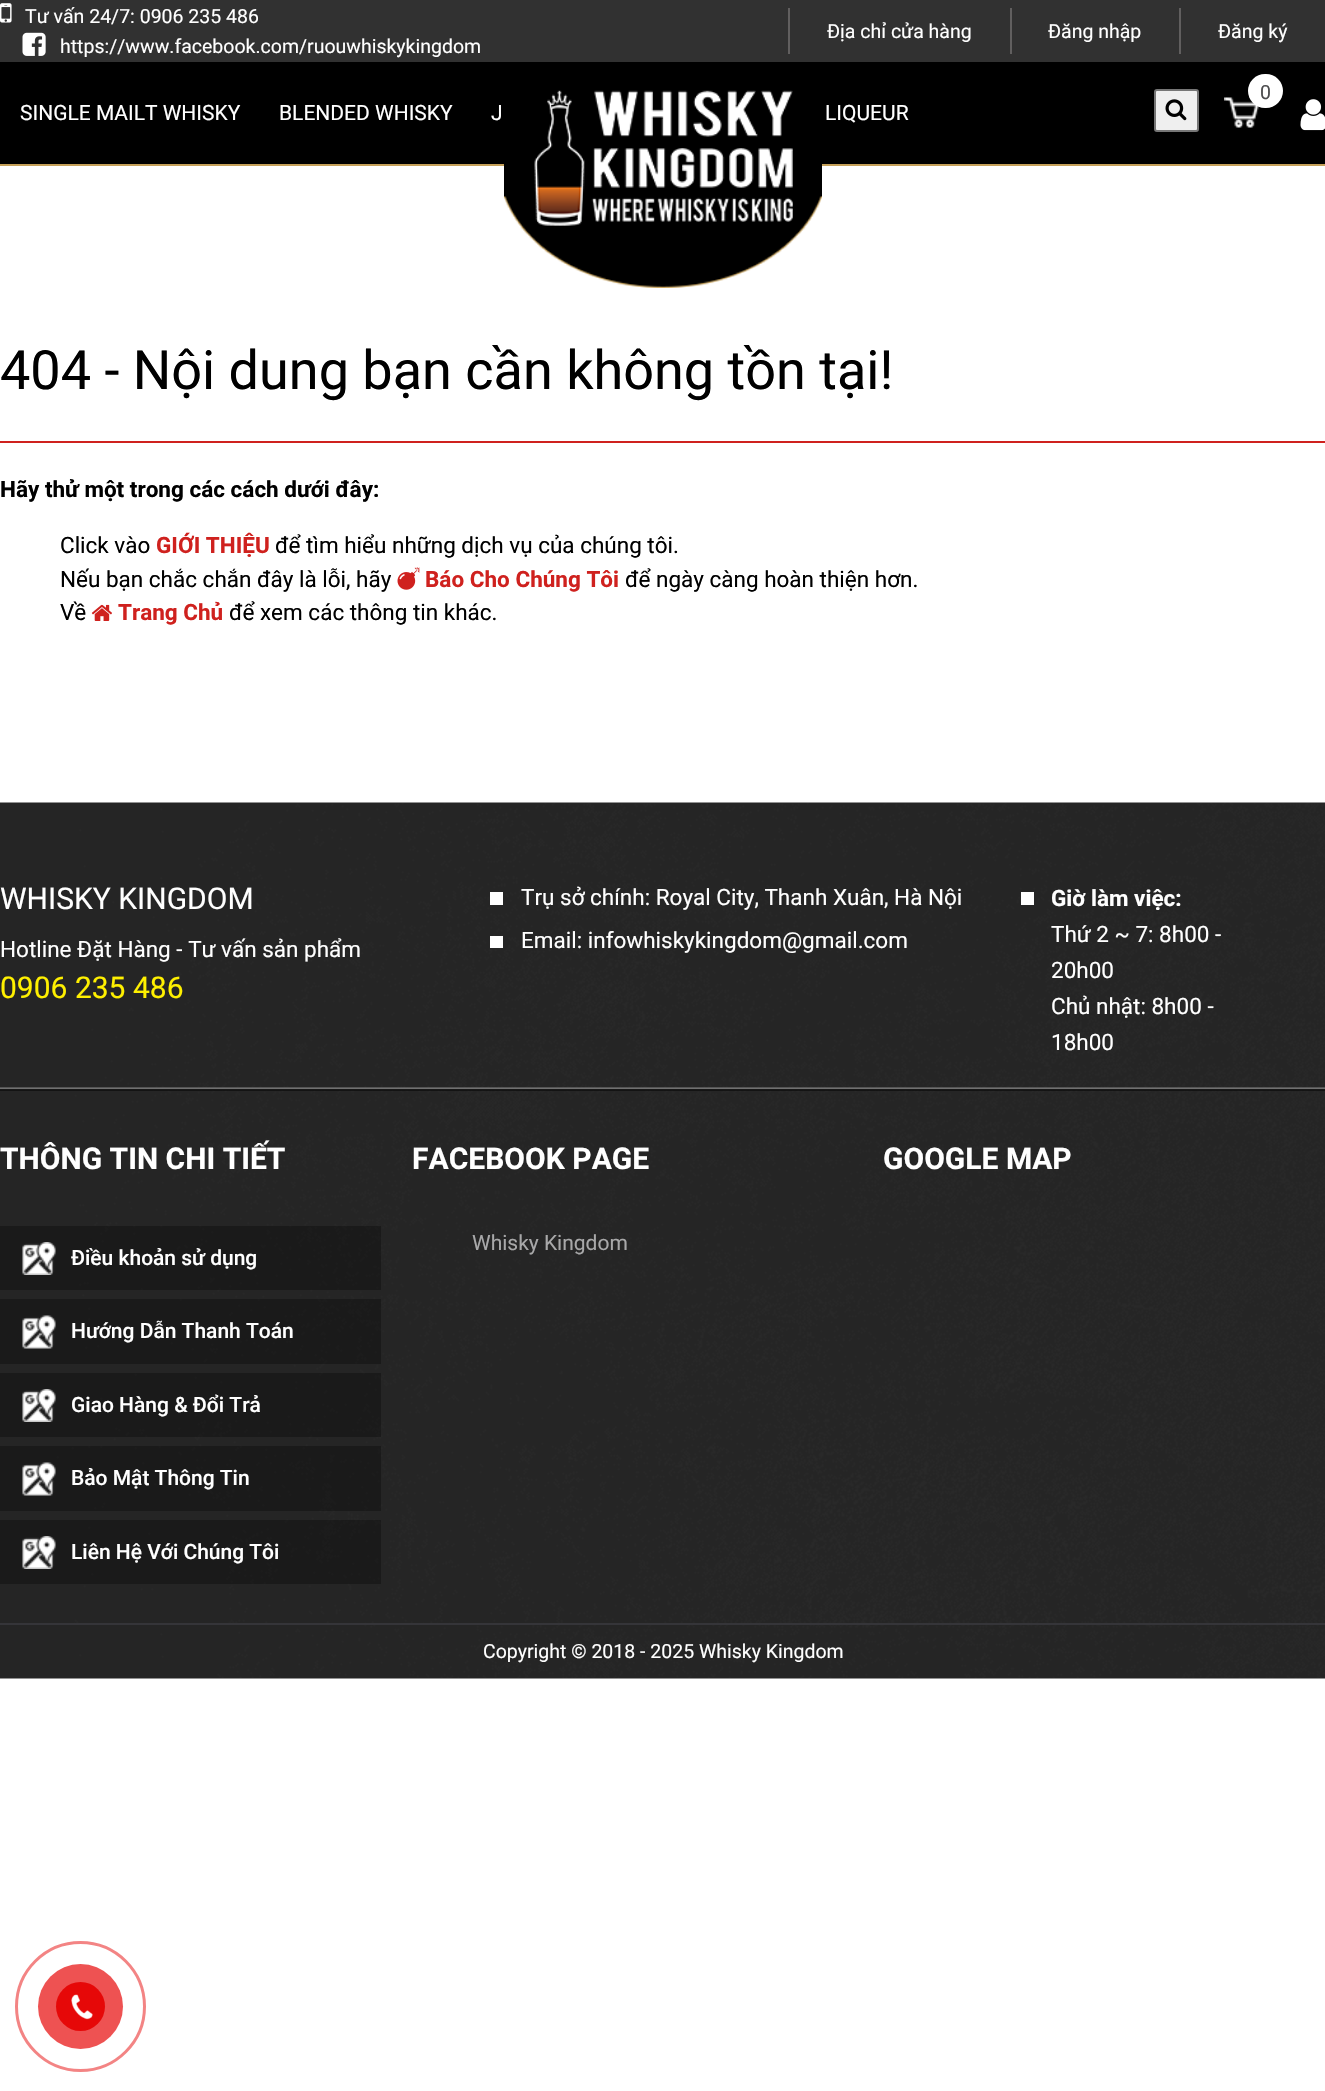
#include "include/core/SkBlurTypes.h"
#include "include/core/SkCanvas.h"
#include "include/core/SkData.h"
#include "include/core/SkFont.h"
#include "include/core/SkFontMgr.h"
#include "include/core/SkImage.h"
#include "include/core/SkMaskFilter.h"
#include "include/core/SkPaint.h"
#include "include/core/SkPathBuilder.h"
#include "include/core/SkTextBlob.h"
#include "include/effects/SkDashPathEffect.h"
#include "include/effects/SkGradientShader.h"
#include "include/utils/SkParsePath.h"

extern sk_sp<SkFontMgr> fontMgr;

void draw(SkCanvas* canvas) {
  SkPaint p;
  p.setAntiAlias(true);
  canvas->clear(SK_ColorWHITE);
  p.setColor(SkColorSetRGB(49, 49, 49));
  canvas->drawRect(SkRect::MakeLTRB(0, 0, 1325, 62), p);
  canvas->drawImageRect(SkImages::DeferredFromEncodedData(SkData::MakeFromFileName("images/1.png")), SkRect::MakeLTRB(0, 3, 12, 23), SkSamplingOptions());
  canvas->drawImageRect(SkImages::DeferredFromEncodedData(SkData::MakeFromFileName("images/2.png")), SkRect::MakeLTRB(22, 32, 46, 56), SkSamplingOptions());
  p.setColor(SkColorSetRGB(97, 95, 95));
  canvas->drawRect(SkRect::MakeLTRB(1010, 8, 1012, 54), p);
  canvas->drawRect(SkRect::MakeLTRB(788, 8, 790, 54), p);
  canvas->drawRect(SkRect::MakeLTRB(1179, 8, 1181, 54), p);
  p.setColor(SK_ColorBLACK);
  canvas->drawRect(SkRect::MakeLTRB(0, 62, 1325, 164), p);
  p.setColor(SkColorSetRGB(197, 160, 89));
  canvas->drawRect(SkRect::MakeLTRB(0, 164, 1325, 166), p);
  canvas->drawImageRect(SkImages::DeferredFromEncodedData(SkData::MakeFromFileName("images/3.png")), SkRect::MakeLTRB(504, 90, 822, 288), SkSamplingOptions());
  p.setColor(SkColorSetRGB(239, 239, 239));
  canvas->drawRoundRect(SkRect::MakeLTRB(1155, 90, 1198, 131), 2, 2, p);
  p.setStyle(SkPaint::kStroke_Style);
  p.setStrokeWidth(2);
  p.setColor(SkColorSetRGB(118, 118, 118));
  canvas->drawRoundRect(SkRect::MakeLTRB(1155, 90, 1198, 131), 2, 2, p);
  canvas->drawImageRect(SkImages::DeferredFromEncodedData(SkData::MakeFromFileName("images/4.png")), SkRect::MakeLTRB(1165, 99, 1187, 121), SkSamplingOptions());
  canvas->drawImageRect(SkImages::DeferredFromEncodedData(SkData::MakeFromFileName("images/5.png")), SkRect::MakeLTRB(1224, 97, 1259, 128), SkSamplingOptions());
  p.setStyle(SkPaint::kFill_Style);
  p.setColor(SK_ColorWHITE);
  canvas->drawRoundRect(SkRect::MakeLTRB(1248, 74, 1283, 108), 17, 17, p);
  canvas->drawImageRect(SkImages::DeferredFromEncodedData(SkData::MakeFromFileName("images/6.png")), SkRect::MakeLTRB(1300, 99, 1325, 131), SkSamplingOptions());
  p.setColor(SkColorSetRGB(207, 33, 30));
  canvas->drawRect(SkRect::MakeLTRB(0, 441, 1325, 443), p);
  canvas->drawImageRect(SkImages::DeferredFromEncodedData(SkData::MakeFromFileName("images/7.png")), SkRect::MakeLTRB(397, 567, 420, 590), SkSamplingOptions());
  canvas->drawImageRect(SkImages::DeferredFromEncodedData(SkData::MakeFromFileName("images/8.png")), SkRect::MakeLTRB(91, 604, 112, 621), SkSamplingOptions());
  canvas->drawImageRect(SkImages::DeferredFromEncodedData(SkData::MakeFromFileName("images/9.png")), SkRect::MakeLTRB(0, 802, 1325, 1679), SkSamplingOptions());
  canvas->drawImageRect(SkImages::DeferredFromEncodedData(SkData::MakeFromFileName("images/10.png")), SkRect::MakeLTRB(0, 1087, 1325, 1091), SkSamplingOptions());
  p.setColor(SK_ColorWHITE);
  canvas->drawRect(SkRect::MakeLTRB(490, 892, 503, 905), p);
  canvas->drawRect(SkRect::MakeLTRB(490, 936, 503, 948), p);
  canvas->drawRect(SkRect::MakeLTRB(1021, 892, 1034, 905), p);
  p.setColor(SkColorSetARGB(77, 0, 0, 0));
  canvas->drawRect(SkRect::MakeLTRB(0, 1226, 381, 1290), p);
  canvas->drawImageRect(SkImages::DeferredFromEncodedData(SkData::MakeFromFileName("images/11.png")), SkRect::MakeLTRB(22, 1242, 56, 1275), SkSamplingOptions());
  canvas->drawRect(SkRect::MakeLTRB(0, 1299, 381, 1364), p);
  canvas->drawImageRect(SkImages::DeferredFromEncodedData(SkData::MakeFromFileName("images/12.png")), SkRect::MakeLTRB(22, 1315, 56, 1349), SkSamplingOptions());
  canvas->drawRect(SkRect::MakeLTRB(0, 1373, 381, 1437), p);
  canvas->drawImageRect(SkImages::DeferredFromEncodedData(SkData::MakeFromFileName("images/11.png")), SkRect::MakeLTRB(22, 1389, 56, 1422), SkSamplingOptions());
  canvas->drawRect(SkRect::MakeLTRB(0, 1446, 381, 1511), p);
  canvas->drawImageRect(SkImages::DeferredFromEncodedData(SkData::MakeFromFileName("images/12.png")), SkRect::MakeLTRB(22, 1462, 56, 1496), SkSamplingOptions());
  canvas->drawRect(SkRect::MakeLTRB(0, 1520, 381, 1584), p);
  canvas->drawImageRect(SkImages::DeferredFromEncodedData(SkData::MakeFromFileName("images/11.png")), SkRect::MakeLTRB(22, 1536, 56, 1569), SkSamplingOptions());
  p.setColor(SkColorSetRGB(53, 53, 57));
  canvas->drawRect(SkRect::MakeLTRB(0, 1623, 1325, 1625), p);
  p.setStyle(SkPaint::kStroke_Style);
  p.setStrokeWidth(3);
  p.setColor(SkColorSetRGB(243, 132, 132));
  canvas->drawCircle(80.5f, 2006.5f, 64, p);
  p.setStyle(SkPaint::kFill_Style);
  p.setColor(SkColorSetRGB(238, 82, 82));
  canvas->drawCircle(80.5f, 2006.5f, 42.5f, p);
  p.setColor(SkColorSetRGB(230, 8, 8));
  canvas->drawCircle(80.5f, 2006.5f, 24.5f, p);
  canvas->drawImageRect(SkImages::DeferredFromEncodedData(SkData::MakeFromFileName("images/13.png")), SkRect::MakeLTRB(71, 1994, 93, 2020), SkSamplingOptions());
  SkFont font1(fontMgr->matchFamilyStyle("Roboto", SkFontStyle::Normal()), 19.5f);
  font1.setSubpixel(true);
  p.setColor(SK_ColorWHITE);
  canvas->drawString("Tư vấn 24/7: 0906 235 486", 25, 23, font1, p);
  canvas->drawString("https://www.facebook.com/ruouwhiskykingdom", 60, 53, font1, p);
  canvas->drawString("Địa chỉ cửa hàng", 827, 38, font1, p);
  canvas->drawString("Đăng nhập", 1048, 38, font1, p);
  canvas->drawString("Đăng ký", 1218, 38, font1, p);
  p.setColor(SkColorSetRGB(77, 77, 79));
  canvas->drawString("0", 1260, 99, font1, p);
  SkFont font2(fontMgr->matchFamilyStyle("Roboto", SkFontStyle::Normal()), 21);
  font2.setSubpixel(true);
  p.setColor(SK_ColorWHITE);
  canvas->drawString("SINGLE MAILT WHISKY", 20, 120, font2, p);
  canvas->drawString("BLENDED WHISKY", 279, 120, font2, p);
  canvas->drawString("J", 491, 120, font2, p);
  canvas->drawString("LIQUEUR", 825, 120, font2, p);
  SkFont font3(fontMgr->matchFamilyStyle("Roboto", SkFontStyle::Normal()), 54);
  font3.setSubpixel(true);
  p.setColor(SK_ColorBLACK);
  canvas->drawString("404 - Nội dung bạn cần không tồn tại!", 0, 389, font3, p);
  SkFont font4(fontMgr->matchFamilyStyle("Roboto", SkFontStyle::Bold()), 22.5f);
  font4.setSubpixel(true);
  canvas->drawString("Hãy thử một trong các cách dưới đây:", 0, 497, font4, p);
  SkFont font5(fontMgr->matchFamilyStyle("Roboto", SkFontStyle::Normal()), 22.5f);
  font5.setSubpixel(true);
  canvas->drawString("Click vào", 60, 553, font5, p);
  p.setColor(SkColorSetRGB(207, 33, 30));
  canvas->drawString("GIỚI THIỆU", 156, 553, font4, p);
  p.setColor(SK_ColorBLACK);
  canvas->drawString("để tìm hiểu những dịch vụ của chúng tôi.", 275, 553, font5, p);
  canvas->drawString("Nếu bạn chắc chắn đây là lỗi, hãy", 60, 587, font5, p);
  p.setColor(SkColorSetRGB(207, 33, 30));
  canvas->drawString("Báo Cho Chúng Tôi", 425, 587, font4, p);
  p.setColor(SK_ColorBLACK);
  canvas->drawString("để ngày càng hoàn thiện hơn.", 625, 587, font5, p);
  canvas->drawString("Về", 60, 620, font5, p);
  p.setColor(SkColorSetRGB(207, 33, 30));
  canvas->drawString("Trang Chủ", 118, 620, font4, p);
  p.setColor(SK_ColorBLACK);
  canvas->drawString("để xem các thông tin khác.", 229, 620, font5, p);
  SkFont font6(fontMgr->matchFamilyStyle("Roboto", SkFontStyle::Normal()), 30);
  font6.setSubpixel(true);
  p.setColor(SK_ColorWHITE);
  canvas->drawString("WHISKY KINGDOM", 0, 909, font6, p);
  canvas->drawString("Hotline Đặt Hàng - Tư vấn sản phẩm", 0, 957, font5, p);
  p.setColor(SkColorSetRGB(255, 240, 0));
  canvas->drawString("0906 235 486", 0, 998, font6, p);
  p.setColor(SK_ColorWHITE);
  canvas->drawString("Trụ sở chính: Royal City, Thanh Xuân, Hà Nội", 521, 905, font5, p);
  canvas->drawString("Email: infowhiskykingdom@gmail.com", 521, 948, font5, p);
  canvas->drawString("Giờ làm việc:", 1051, 906, font4, p);
  canvas->drawString("Thứ 2 ~ 7: 8h00 -", 1051, 942, font5, p);
  canvas->drawString("20h00", 1051, 978, font5, p);
  canvas->drawString("Chủ nhật: 8h00 -", 1051, 1014, font5, p);
  canvas->drawString("18h00", 1051, 1050, font5, p);
  SkFont font7(fontMgr->matchFamilyStyle("Roboto", SkFontStyle::Bold()), 30);
  font7.setSubpixel(true);
  canvas->drawString("THÔNG TIN CHI TIẾT", 0, 1169, font7, p);
  SkFont font8(fontMgr->matchFamilyStyle("Roboto", SkFontStyle(500, SkFontStyle::kNormal_Width, SkFontStyle::kUpright_Slant)), 21);
  font8.setSubpixel(true);
  canvas->drawString("Điều khoản sử dụng", 71, 1265, font8, p);
  canvas->drawString("Hướng Dẫn Thanh Toán", 71, 1338, font8, p);
  canvas->drawString("Giao Hàng & Đổi Trả", 71, 1412, font8, p);
  canvas->drawString("Bảo Mật Thông Tin", 71, 1485, font8, p);
  canvas->drawString("Liên Hệ Với Chúng Tôi", 71, 1559, font8, p);
  canvas->drawString("FACEBOOK PAGE", 412, 1169, font7, p);
  p.setColor(SkColorSetRGB(168, 168, 169));
  canvas->drawString("Whisky Kingdom", 472, 1250, font2, p);
  p.setColor(SK_ColorWHITE);
  canvas->drawString("GOOGLE MAP", 883, 1169, font7, p);
  canvas->drawString("Copyright © 2018 - 2025 Whisky Kingdom", 483, 1658, font1, p);
}
